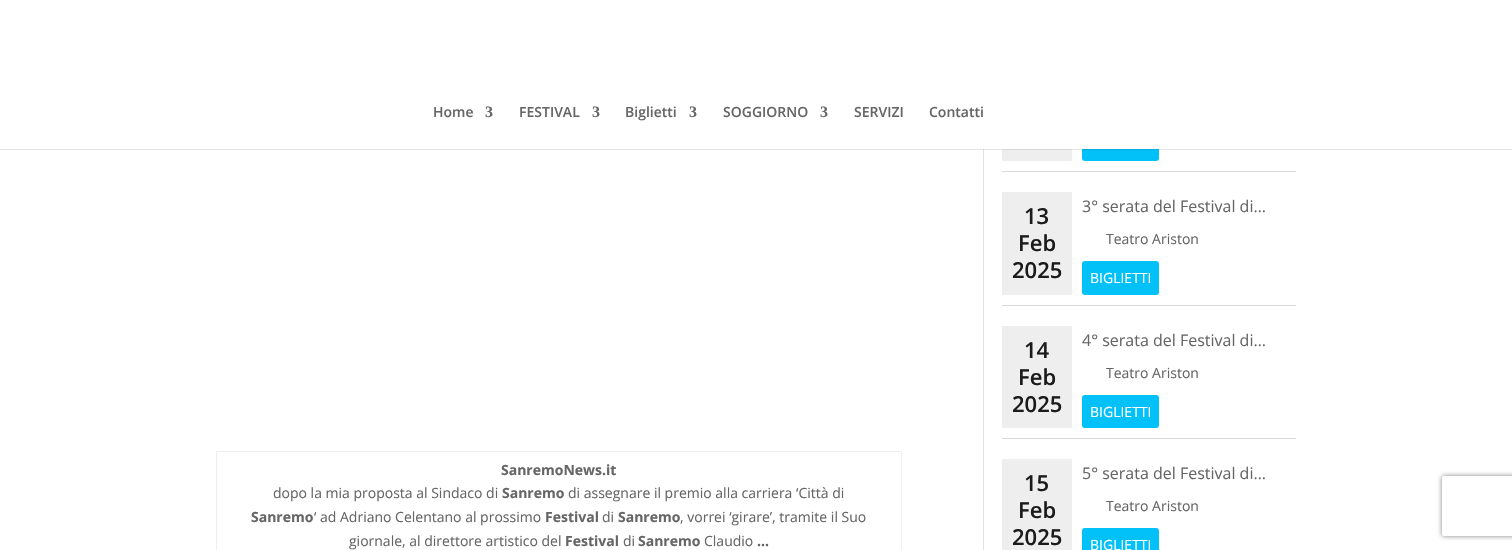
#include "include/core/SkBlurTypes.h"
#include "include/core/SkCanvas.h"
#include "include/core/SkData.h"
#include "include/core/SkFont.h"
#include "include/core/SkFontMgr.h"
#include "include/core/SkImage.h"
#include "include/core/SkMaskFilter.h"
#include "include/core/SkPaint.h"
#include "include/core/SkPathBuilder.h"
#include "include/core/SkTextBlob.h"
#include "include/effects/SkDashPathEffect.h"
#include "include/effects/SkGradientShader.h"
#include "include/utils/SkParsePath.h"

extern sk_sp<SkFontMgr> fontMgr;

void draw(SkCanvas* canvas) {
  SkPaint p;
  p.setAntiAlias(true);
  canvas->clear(SK_ColorWHITE);
  p.setColor(SkColorSetRGB(226, 226, 226));
  canvas->drawRect(SkRect::MakeLTRB(983, 149, 984, 550), p);
  p.setColor(SkColorSetRGB(238, 238, 238));
  canvas->drawRect(SkRect::MakeLTRB(1002, 149, 1072, 161), p);
  p.setColor(SkColorSetRGB(2, 192, 248));
  canvas->drawRoundRect(SkRect::MakeLTRB(1082, 127, 1159, 161), 3, 3, p);
  p.setColor(SkColorSetARGB(26, 0, 0, 0));
  canvas->drawRect(SkRect::MakeLTRB(0, 149, 1512, 150), p);
  p.setColor(SK_ColorWHITE);
  canvas->drawRect(SkRect::MakeLTRB(1082, 127, 1159, 149), p);
  p.setColor(SkColorSetRGB(238, 238, 238));
  canvas->drawRect(SkRect::MakeLTRB(216, 451, 902, 452), p);
  canvas->drawRect(SkRect::MakeLTRB(901, 451, 902, 550), p);
  canvas->drawRect(SkRect::MakeLTRB(216, 451, 217, 550), p);
  p.setColor(SkColorSetRGB(217, 217, 217));
  canvas->drawRect(SkRect::MakeLTRB(1002, 171, 1296, 172), p);
  canvas->drawRect(SkRect::MakeLTRB(1002, 305, 1296, 306), p);
  p.setColor(SkColorSetRGB(238, 238, 238));
  canvas->drawRect(SkRect::MakeLTRB(1002, 192, 1072, 295), p);
  p.setColor(SkColorSetRGB(2, 192, 248));
  canvas->drawRoundRect(SkRect::MakeLTRB(1082, 261, 1159, 295), 3, 3, p);
  p.setColor(SkColorSetRGB(217, 217, 217));
  canvas->drawRect(SkRect::MakeLTRB(1002, 438, 1296, 439), p);
  p.setColor(SkColorSetRGB(238, 238, 238));
  canvas->drawRect(SkRect::MakeLTRB(1002, 326, 1072, 428), p);
  p.setColor(SkColorSetRGB(2, 192, 248));
  canvas->drawRoundRect(SkRect::MakeLTRB(1082, 395, 1159, 428), 3, 3, p);
  p.setColor(SkColorSetRGB(238, 238, 238));
  canvas->drawRect(SkRect::MakeLTRB(1002, 459, 1072, 550), p);
  p.setColor(SkColorSetRGB(2, 192, 248));
  canvas->drawRoundRect(SkRect::MakeLTRB(1082, 528, 1159, 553), 3, 3, p);
  canvas->save();
  canvas->clipPath(SkPathBuilder(SkPathFillType::kEvenOdd).moveTo(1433, 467).lineTo(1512, 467).lineTo(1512, 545).lineTo(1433, 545).close().moveTo(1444, 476).lineTo(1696, 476).cubicTo(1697, 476, 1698, 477, 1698, 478).lineTo(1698, 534).cubicTo(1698, 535, 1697, 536, 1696, 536).lineTo(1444, 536).cubicTo(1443, 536, 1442, 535, 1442, 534).lineTo(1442, 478).cubicTo(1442, 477, 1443, 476, 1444, 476).close().detach(), true);
  p.setColor(SkColorSetRGB(128, 128, 128));
  p.setMaskFilter(SkMaskFilter::MakeBlur(kNormal_SkBlurStyle, 2.5f));
  canvas->drawRoundRect(SkRect::MakeLTRB(1442, 476, 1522, 536), 2, 2, p);
  p.setMaskFilter(nullptr);
  canvas->restore();
  SkFont font1(fontMgr->matchFamilyStyle("Open Sans", SkFontStyle(600, SkFontStyle::kNormal_Width, SkFontStyle::kUpright_Slant)), 14);
  font1.setSubpixel(true);
  p.setColor(SkColorSetRGB(102, 102, 102));
  canvas->drawString("Home", 433, 117, font1, p);
  SkFont font2(fontMgr->matchFamilyStyle("Liberation Serif", SkFontStyle::Bold()), 16);
  font2.setSubpixel(true);
  canvas->drawString("3", 485, 117, font2, p);
  canvas->drawString("FESTIVAL", 519, 117, font1, p);
  canvas->drawString("3", 592, 117, font2, p);
  canvas->drawString("Biglietti", 625, 117, font1, p);
  canvas->drawString("3", 689, 117, font2, p);
  canvas->drawString("SOGGIORNO", 723, 117, font1, p);
  canvas->drawString("3", 820, 117, font2, p);
  canvas->drawString("SERVIZI", 854, 117, font1, p);
  canvas->drawString("Contatti", 929, 117, font1, p);
  SkFont font3(fontMgr->matchFamilyStyle("Open Sans", SkFontStyle::Bold()), 14);
  font3.setSubpixel(true);
  canvas->drawString("SanremoNews.it", 501, 475, font3, p);
  SkFont font4(fontMgr->matchFamilyStyle("Open Sans", SkFontStyle::Normal()), 14);
  font4.setSubpixel(true);
  canvas->drawString("dopo la mia proposta al Sindaco di", 273, 498, font4, p);
  canvas->drawString("Sanremo", 502, 498, font3, p);
  canvas->drawString("di assegnare il premio alla carriera ‘Città di", 568, 498, font4, p);
  canvas->drawString("Sanremo", 251, 522, font3, p);
  canvas->drawString("‘ ad Adriano Celentano al prossimo", 314, 522, font4, p);
  canvas->drawString("Festival", 545, 522, font3, p);
  canvas->drawString("di", 602, 522, font4, p);
  canvas->drawString("Sanremo", 618, 522, font3, p);
  canvas->drawString(", vorrei ‘girare’, tramite il Suo", 680, 522, font4, p);
  canvas->drawString("giornale, al direttore artistico del", 349, 546, font4, p);
  canvas->drawString("Festival", 565, 546, font3, p);
  canvas->drawString("di", 623, 546, font4, p);
  canvas->drawString("Sanremo", 638, 546, font3, p);
  canvas->drawString("Claudio", 704, 546, font4, p);
  canvas->drawString("…", 757, 546, font3, p);
  SkFont font5(fontMgr->matchFamilyStyle("Open Sans", SkFontStyle(600, SkFontStyle::kNormal_Width, SkFontStyle::kUpright_Slant)), 22);
  font5.setSubpixel(true);
  p.setColor(SkColorSetRGB(27, 27, 27));
  canvas->drawString("13", 1024, 224, font5, p);
  canvas->drawString("Feb", 1018, 251, font5, p);
  canvas->drawString("2025", 1012, 278, font5, p);
  SkFont font6(fontMgr->matchFamilyStyle("Open Sans", SkFontStyle::Normal()), 16);
  font6.setSubpixel(true);
  p.setColor(SkColorSetRGB(102, 102, 102));
  canvas->drawString("3° serata del Festival di…", 1082, 212, font6, p);
  canvas->drawString("Teatro Ariston", 1106, 244, font4, p);
  p.setColor(SK_ColorWHITE);
  canvas->drawString("BIGLIETTI", 1090, 283, font4, p);
  p.setColor(SkColorSetRGB(27, 27, 27));
  canvas->drawString("14", 1024, 358, font5, p);
  canvas->drawString("Feb", 1018, 385, font5, p);
  canvas->drawString("2025", 1012, 412, font5, p);
  p.setColor(SkColorSetRGB(102, 102, 102));
  canvas->drawString("4° serata del Festival di…", 1082, 346, font6, p);
  canvas->drawString("Teatro Ariston", 1106, 378, font4, p);
  p.setColor(SK_ColorWHITE);
  canvas->drawString("BIGLIETTI", 1090, 417, font4, p);
  p.setColor(SkColorSetRGB(27, 27, 27));
  canvas->drawString("15", 1024, 491, font5, p);
  canvas->drawString("Feb", 1018, 518, font5, p);
  canvas->drawString("2025", 1012, 545, font5, p);
  p.setColor(SkColorSetRGB(102, 102, 102));
  canvas->drawString("5° serata del Festival di…", 1082, 479, font6, p);
  canvas->drawString("Teatro Ariston", 1106, 511, font4, p);
  p.setColor(SK_ColorWHITE);
  canvas->drawString("BIGLIETTI", 1090, 550, font4, p);
}
